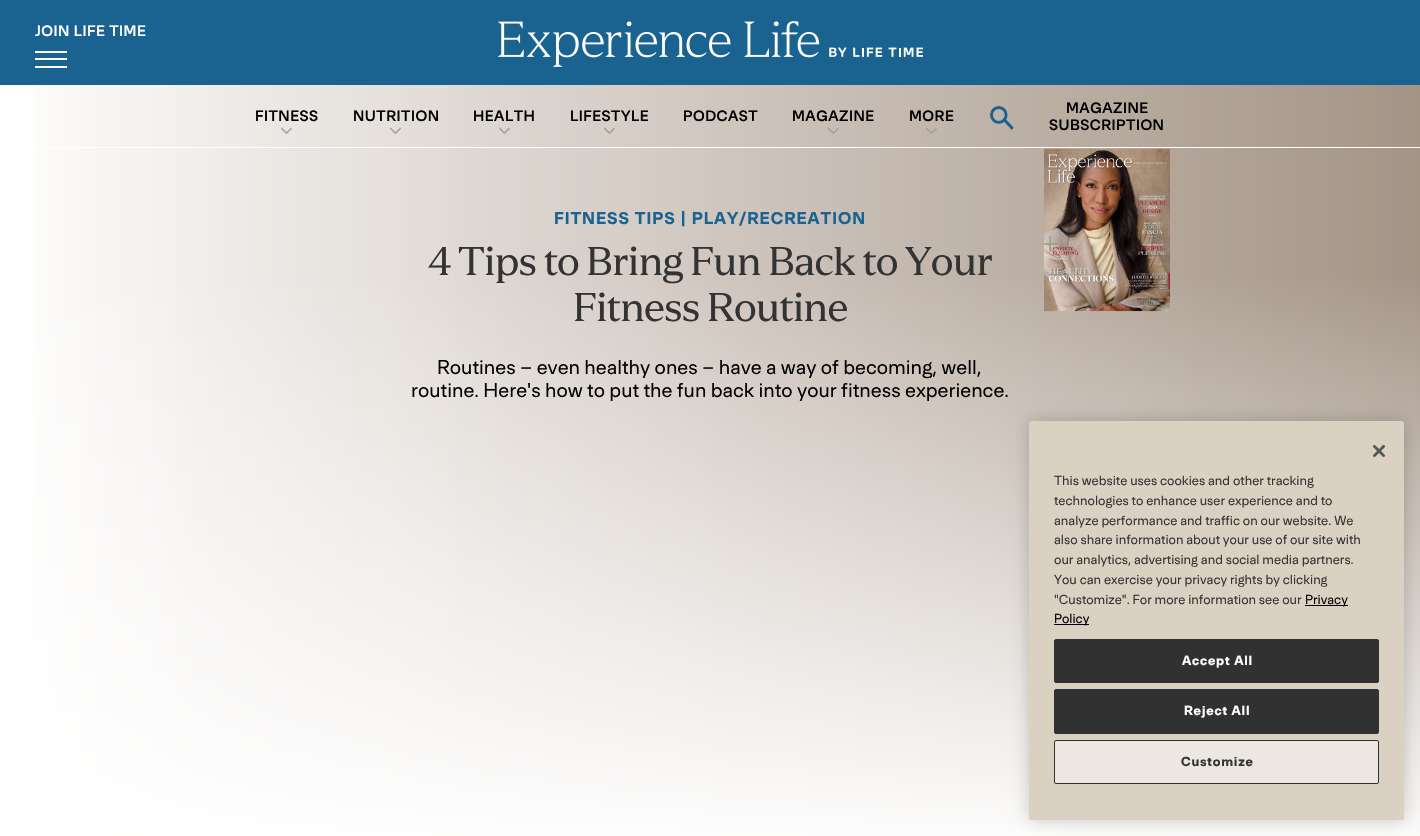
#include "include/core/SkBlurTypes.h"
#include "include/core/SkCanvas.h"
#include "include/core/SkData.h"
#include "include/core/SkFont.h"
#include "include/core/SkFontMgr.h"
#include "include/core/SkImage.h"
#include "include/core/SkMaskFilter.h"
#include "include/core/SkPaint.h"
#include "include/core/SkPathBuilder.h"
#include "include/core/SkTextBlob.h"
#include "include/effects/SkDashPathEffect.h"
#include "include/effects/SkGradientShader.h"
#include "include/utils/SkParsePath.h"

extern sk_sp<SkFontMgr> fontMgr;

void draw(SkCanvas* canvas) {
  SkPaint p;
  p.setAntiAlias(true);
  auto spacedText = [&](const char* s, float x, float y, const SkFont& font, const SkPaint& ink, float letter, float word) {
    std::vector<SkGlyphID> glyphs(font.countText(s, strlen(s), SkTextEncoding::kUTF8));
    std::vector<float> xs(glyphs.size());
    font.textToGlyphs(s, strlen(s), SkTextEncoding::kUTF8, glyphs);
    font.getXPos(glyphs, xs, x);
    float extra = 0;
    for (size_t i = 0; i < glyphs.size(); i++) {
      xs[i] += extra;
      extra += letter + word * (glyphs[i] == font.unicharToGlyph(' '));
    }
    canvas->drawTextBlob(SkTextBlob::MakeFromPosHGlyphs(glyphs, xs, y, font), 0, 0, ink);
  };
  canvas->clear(SK_ColorWHITE);
  canvas->drawImageRect(SkImages::DeferredFromEncodedData(SkData::MakeFromFileName("images/1.png")), SkRect::MakeLTRB(31, 85, 1420, 836), SkSamplingOptions());
  p.setColor(SkColorSetRGB(26, 98, 144));
  canvas->drawRect(SkRect::MakeLTRB(0, 0, 1420, 85), p);
  canvas->drawImageRect(SkImages::DeferredFromEncodedData(SkData::MakeFromFileName("images/2.png")), SkRect::MakeLTRB(498, 21, 923, 67), SkSamplingOptions());
  p.setColor(SK_ColorWHITE);
  canvas->drawRect(SkRect::MakeLTRB(35, 51, 67, 53), p);
  canvas->drawRect(SkRect::MakeLTRB(35, 58, 67, 60), p);
  canvas->drawRect(SkRect::MakeLTRB(35, 66, 67, 68), p);
  canvas->drawRect(SkRect::MakeLTRB(31, 147, 1420, 148), p);
  canvas->drawImageRect(SkImages::DeferredFromEncodedData(SkData::MakeFromFileName("images/3.png")), SkRect::MakeLTRB(281, 127, 292, 134), SkSamplingOptions());
  canvas->drawImageRect(SkImages::DeferredFromEncodedData(SkData::MakeFromFileName("images/4.png")), SkRect::MakeLTRB(390, 127, 401, 134), SkSamplingOptions());
  canvas->drawImageRect(SkImages::DeferredFromEncodedData(SkData::MakeFromFileName("images/5.png")), SkRect::MakeLTRB(499, 127, 510, 134), SkSamplingOptions());
  canvas->drawImageRect(SkImages::DeferredFromEncodedData(SkData::MakeFromFileName("images/6.png")), SkRect::MakeLTRB(604, 127, 615, 134), SkSamplingOptions());
  canvas->drawImageRect(SkImages::DeferredFromEncodedData(SkData::MakeFromFileName("images/7.png")), SkRect::MakeLTRB(828, 127, 839, 134), SkSamplingOptions());
  canvas->drawImageRect(SkImages::DeferredFromEncodedData(SkData::MakeFromFileName("images/8.png")), SkRect::MakeLTRB(926, 127, 937, 134), SkSamplingOptions());
  canvas->drawImageRect(SkImages::DeferredFromEncodedData(SkData::MakeFromFileName("images/9.png")), SkRect::MakeLTRB(990, 106, 1014, 130), SkSamplingOptions());
  canvas->drawImageRect(SkImages::DeferredFromEncodedData(SkData::MakeFromFileName("images/10.png")), SkRect::MakeLTRB(1044, 148, 1171, 312), SkSamplingOptions());
  p.setColor(SkColorSetARGB(51, 0, 0, 0));
  p.setMaskFilter(SkMaskFilter::MakeBlur(kNormal_SkBlurStyle, 9));
  canvas->drawRoundRect(SkRect::MakeLTRB(1029, 421, 1404, 820), 2.5f, 2.5f, p);
  p.setMaskFilter(nullptr);
  p.setColor(SkColorSetRGB(219, 209, 195));
  canvas->drawRoundRect(SkRect::MakeLTRB(1029, 421, 1404, 820), 2.5f, 2.5f, p);
  canvas->drawImageRect(SkImages::DeferredFromEncodedData(SkData::MakeFromFileName("images/11.png")), SkRect::MakeLTRB(1373, 445, 1385, 457), SkSamplingOptions());
  p.setColor(SK_ColorBLACK);
  canvas->drawRect(SkRect::MakeLTRB(1305, 605, 1348, 606), p);
  canvas->drawRect(SkRect::MakeLTRB(1054, 624, 1089, 625), p);
  p.setColor(SkColorSetRGB(49, 49, 49));
  canvas->drawRoundRect(SkRect::MakeLTRB(1054.5f, 639.5f, 1378.5f, 682.5f), 1.5f, 1.5f, p);
  p.setStyle(SkPaint::kStroke_Style);
  p.setStrokeWidth(1);
  canvas->drawRoundRect(SkRect::MakeLTRB(1054.5f, 639.5f, 1378.5f, 682.5f), 1.5f, 1.5f, p);
  p.setStyle(SkPaint::kFill_Style);
  canvas->drawRoundRect(SkRect::MakeLTRB(1054.5f, 689.5f, 1378.5f, 733.5f), 1.5f, 1.5f, p);
  p.setStyle(SkPaint::kStroke_Style);
  canvas->drawRoundRect(SkRect::MakeLTRB(1054.5f, 689.5f, 1378.5f, 733.5f), 1.5f, 1.5f, p);
  p.setStyle(SkPaint::kFill_Style);
  p.setColor(SkColorSetRGB(236, 232, 225));
  canvas->drawRoundRect(SkRect::MakeLTRB(1054.5f, 740.5f, 1378.5f, 783.5f), 1.5f, 1.5f, p);
  p.setStyle(SkPaint::kStroke_Style);
  p.setColor(SkColorSetRGB(49, 49, 49));
  canvas->drawRoundRect(SkRect::MakeLTRB(1054.5f, 740.5f, 1378.5f, 783.5f), 1.5f, 1.5f, p);
  SkFont font1(fontMgr->matchFamilyStyle("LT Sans", SkFontStyle(500, SkFontStyle::kNormal_Width, SkFontStyle::kUpright_Slant)), 15);
  font1.setSubpixel(true);
  p.setStyle(SkPaint::kFill_Style);
  p.setColor(SK_ColorWHITE);
  spacedText("JOIN LIFE TIME", 35, 36, font1, p, 0.5f, 0);
  p.setColor(SK_ColorBLACK);
  spacedText("FITNESS", 255, 121, font1, p, 0.5f, 0);
  spacedText("NUTRITION", 353, 121, font1, p, 0.5f, 0);
  spacedText("HEALTH", 473, 121, font1, p, 0.5f, 0);
  spacedText("LIFESTYLE", 570, 121, font1, p, 0.5f, 0);
  spacedText("PODCAST", 683, 121, font1, p, 0.5f, 0);
  spacedText("MAGAZINE", 792, 121, font1, p, 0.5f, 0);
  spacedText("MORE", 909, 121, font1, p, 0.5f, 0);
  spacedText("MAGAZINE", 1066, 113, font1, p, 0.5f, 0);
  spacedText("SUBSCRIPTION", 1049, 130, font1, p, 0.5f, 0);
  SkFont font2(fontMgr->matchFamilyStyle("LT Sans", SkFontStyle::Bold()), 17);
  font2.setSubpixel(true);
  p.setColor(SkColorSetRGB(26, 98, 144));
  spacedText("FITNESS TIPS | PLAY/RECREATION", 554, 224, font2, p, 0.95f, 0);
  SkFont font3(fontMgr->matchFamilyStyle("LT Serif", SkFontStyle::Normal()), 40);
  font3.setSubpixel(true);
  p.setColor(SkColorSetRGB(51, 51, 51));
  spacedText("4 Tips to Bring Fun Back to Your", 428, 275, font3, p, -0.8f, 0);
  spacedText("Fitness Routine", 573, 321, font3, p, -0.8f, 0);
  SkFont font4(fontMgr->matchFamilyStyle("LT Sans", SkFontStyle::Normal()), 20);
  font4.setSubpixel(true);
  p.setColor(SK_ColorBLACK);
  canvas->drawString("Routines – even healthy ones – have a way of becoming, well,", 437, 374, font4, p);
  canvas->drawString("routine. Here's how to put the fun back into your fitness experience.", 411, 397, font4, p);
  SkFont font5(fontMgr->matchFamilyStyle("LT Sans", SkFontStyle::Normal()), 13.1f);
  font5.setSubpixel(true);
  p.setColor(SkColorSetRGB(51, 51, 51));
  canvas->drawString("This website uses cookies and other tracking", 1054, 485, font5, p);
  canvas->drawString("technologies to enhance user experience and to", 1054, 505, font5, p);
  canvas->drawString("analyze performance and traffic on our website. We", 1054, 525, font5, p);
  canvas->drawString("also share information about your use of our site with", 1054, 544, font5, p);
  canvas->drawString("our analytics, advertising and social media partners.", 1054, 564, font5, p);
  canvas->drawString("You can exercise your privacy rights by clicking", 1054, 584, font5, p);
  canvas->drawString("\"Customize\". For more information see our", 1054, 604, font5, p);
  p.setColor(SK_ColorBLACK);
  canvas->drawString("Privacy", 1305, 604, font5, p);
  canvas->drawString("Policy", 1054, 623, font5, p);
  SkFont font6(fontMgr->matchFamilyStyle("LT Sans", SkFontStyle::Bold()), 13.1f);
  font6.setSubpixel(true);
  p.setColor(SK_ColorWHITE);
  spacedText("Accept All", 1182, 665, font6, p, 0.75f, 0);
  spacedText("Reject All", 1184, 715, font6, p, 0.75f, 0);
  p.setColor(SkColorSetRGB(51, 51, 51));
  spacedText("Customize", 1181, 766, font6, p, 0.75f, 0);
}
